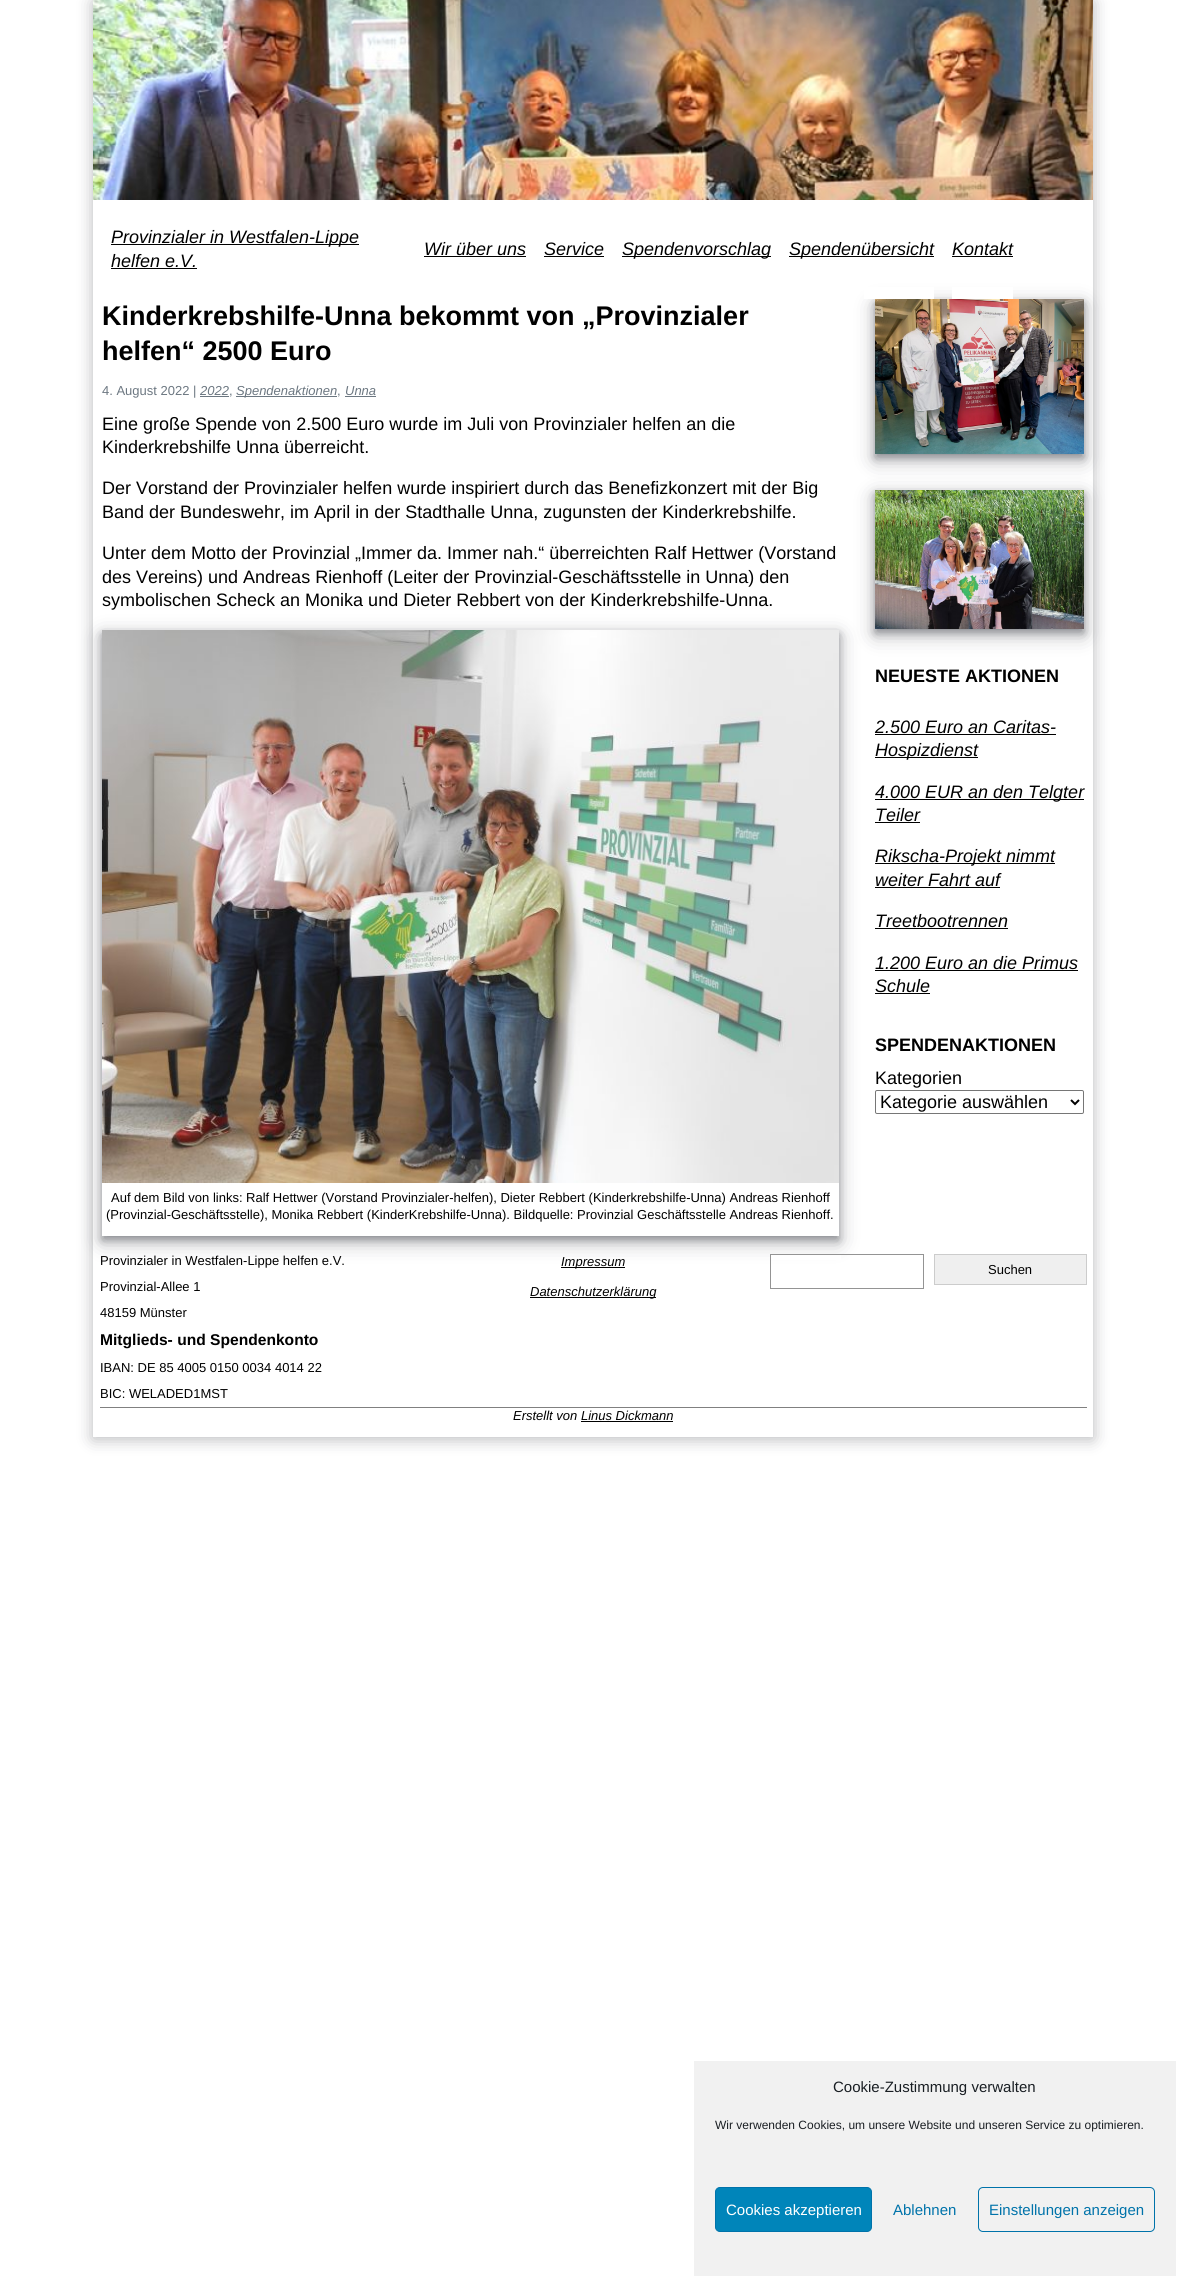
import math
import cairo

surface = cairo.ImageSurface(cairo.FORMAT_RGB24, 1186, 2286)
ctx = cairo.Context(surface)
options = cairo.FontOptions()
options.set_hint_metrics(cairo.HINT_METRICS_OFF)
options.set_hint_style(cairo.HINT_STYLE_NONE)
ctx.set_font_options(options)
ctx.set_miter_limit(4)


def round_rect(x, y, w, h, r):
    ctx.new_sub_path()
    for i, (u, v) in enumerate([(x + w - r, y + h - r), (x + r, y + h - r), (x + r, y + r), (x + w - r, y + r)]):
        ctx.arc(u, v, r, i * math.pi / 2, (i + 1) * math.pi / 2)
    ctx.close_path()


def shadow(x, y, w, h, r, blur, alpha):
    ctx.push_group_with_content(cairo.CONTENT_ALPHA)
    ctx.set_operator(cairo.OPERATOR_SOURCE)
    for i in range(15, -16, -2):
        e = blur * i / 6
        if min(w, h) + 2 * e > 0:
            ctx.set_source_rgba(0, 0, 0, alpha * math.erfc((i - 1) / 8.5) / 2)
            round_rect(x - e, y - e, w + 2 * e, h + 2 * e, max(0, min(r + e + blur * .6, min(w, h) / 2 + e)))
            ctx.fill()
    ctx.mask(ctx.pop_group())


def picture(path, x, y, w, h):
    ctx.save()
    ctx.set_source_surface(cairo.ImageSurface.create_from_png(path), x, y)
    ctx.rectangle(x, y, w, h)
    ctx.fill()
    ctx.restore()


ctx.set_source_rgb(1, 1, 1)
ctx.paint()
ctx.save()
ctx.set_fill_rule(cairo.FILL_RULE_EVEN_ODD)
ctx.new_path()
ctx.move_to(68, 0)
ctx.line_to(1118, 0)
ctx.line_to(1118, 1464)
ctx.line_to(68, 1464)
ctx.close_path()
ctx.move_to(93, 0)
ctx.line_to(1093, 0)
ctx.line_to(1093, 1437)
ctx.line_to(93, 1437)
ctx.close_path()
ctx.clip()
ctx.set_source_rgb(0.055, 0.071, 0.106)
shadow(93, 2, 1000, 1437, 0, 8, 0.3)
ctx.restore()
picture("img1.png", 93, 0, 1000, 200)
ctx.set_source_rgb(0, 0, 0)
ctx.rectangle(111, 244, 248, 1)
ctx.fill()
ctx.select_font_face("Liberation Sans", cairo.FONT_SLANT_ITALIC)
ctx.set_font_size(18)
ctx.move_to(111, 243)
ctx.show_text("Provinzialer in Westfalen-Lippe")
ctx.move_to(111, 267)
ctx.show_text("helfen e.V.")
ctx.rectangle(111, 268, 86, 1)
ctx.fill()
ctx.move_to(424, 255)
ctx.show_text("Wir über uns")
ctx.rectangle(424, 256, 102, 1)
ctx.fill()
ctx.move_to(544, 255)
ctx.show_text("Service")
ctx.rectangle(544, 256, 60, 1)
ctx.fill()
ctx.rectangle(622, 256, 149, 1)
ctx.fill()
ctx.move_to(622, 255)
ctx.show_text("Spendenvorschlag")
ctx.set_source_rgb(0.055, 0.071, 0.106)
shadow(875, 305, 209, 155, 0, 10, 0.3)
shadow(875, 303, 209, 155, 0, 4, 0.3)
ctx.set_source_rgb(1, 1, 1)
ctx.rectangle(864, 287, 70, 12)
ctx.fill()
ctx.set_source_rgb(0, 0, 0)
ctx.rectangle(789, 256, 145, 1)
ctx.fill()
ctx.move_to(789, 255)
ctx.show_text("Spendenübersicht")
ctx.set_source_rgb(1, 1, 1)
ctx.rectangle(952, 287, 61, 12)
ctx.fill()
ctx.set_source_rgb(0, 0, 0)
ctx.move_to(952, 255)
ctx.show_text("Kontakt")
ctx.rectangle(952, 256, 61, 1)
ctx.fill()
ctx.select_font_face("Liberation Sans", cairo.FONT_SLANT_NORMAL, cairo.FONT_WEIGHT_BOLD)
ctx.set_font_size(27)
ctx.move_to(102, 325)
ctx.show_text("Kinderkrebshilfe-Unna bekommt von „Provinzialer")
ctx.move_to(102, 360)
ctx.show_text("helfen“ 2500 Euro")
ctx.select_font_face("Liberation Sans")
ctx.set_font_size(13)
ctx.set_source_rgb(0.424, 0.467, 0.506)
ctx.move_to(102, 395)
ctx.show_text("4. August 2022 |")
ctx.select_font_face("Liberation Sans", cairo.FONT_SLANT_ITALIC)
ctx.move_to(200, 395)
ctx.show_text("2022")
ctx.select_font_face("Liberation Sans")
ctx.move_to(229, 395)
ctx.show_text(",")
ctx.rectangle(200, 396, 29, 1)
ctx.fill()
ctx.rectangle(236, 396, 101, 1)
ctx.fill()
ctx.select_font_face("Liberation Sans", cairo.FONT_SLANT_ITALIC)
ctx.move_to(236, 395)
ctx.show_text("Spendenaktionen")
ctx.select_font_face("Liberation Sans")
ctx.move_to(337, 395)
ctx.show_text(",")
ctx.rectangle(345, 396, 31, 1)
ctx.fill()
ctx.select_font_face("Liberation Sans", cairo.FONT_SLANT_ITALIC)
ctx.move_to(345, 395)
ctx.show_text("Unna")
ctx.select_font_face("Liberation Sans")
ctx.set_font_size(18)
ctx.set_source_rgb(0, 0, 0)
ctx.move_to(102, 430)
ctx.show_text("Eine große Spende von 2.500 Euro wurde im Juli von Provinzialer helfen an die")
ctx.move_to(102, 453)
ctx.show_text("Kinderkrebshilfe Unna überreicht.")
ctx.move_to(102, 494)
ctx.show_text("Der Vorstand der Provinzialer helfen wurde inspiriert durch das Benefizkonzert mit der Big")
ctx.move_to(102, 518)
ctx.show_text("Band der Bundeswehr, im April in der Stadthalle Unna, zugunsten der Kinderkrebshilfe.")
ctx.move_to(102, 559)
ctx.show_text("Unter dem Motto der Provinzial „Immer da. Immer nah.“ überreichten Ralf Hettwer (Vorstand")
ctx.move_to(102, 583)
ctx.show_text("des Vereins) und Andreas Rienhoff (Leiter der Provinzial-Geschäftsstelle in Unna) den")
ctx.save()
ctx.set_fill_rule(cairo.FILL_RULE_EVEN_ODD)
ctx.new_path()
ctx.move_to(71, 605)
ctx.line_to(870, 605)
ctx.line_to(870, 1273)
ctx.line_to(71, 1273)
ctx.close_path()
ctx.move_to(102, 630)
ctx.line_to(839, 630)
ctx.line_to(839, 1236)
ctx.line_to(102, 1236)
ctx.close_path()
ctx.clip()
ctx.set_source_rgb(0.055, 0.071, 0.106)
shadow(102, 636, 737, 606, 0, 10, 0.3)
ctx.restore()
ctx.move_to(102, 606)
ctx.show_text("symbolischen Scheck an Monika und Dieter Rebbert von der Kinderkrebshilfe-Unna.")
ctx.save()
ctx.set_fill_rule(cairo.FILL_RULE_EVEN_ODD)
ctx.new_path()
ctx.move_to(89, 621)
ctx.line_to(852, 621)
ctx.line_to(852, 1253)
ctx.line_to(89, 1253)
ctx.close_path()
ctx.move_to(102, 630)
ctx.line_to(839, 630)
ctx.line_to(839, 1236)
ctx.line_to(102, 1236)
ctx.close_path()
ctx.clip()
ctx.set_source_rgb(0.055, 0.071, 0.106)
shadow(102, 634, 737, 606, 0, 4, 0.3)
ctx.restore()
picture("img2.png", 102, 630, 737, 553)
ctx.set_font_size(13)
ctx.move_to(111, 1202)
ctx.show_text("Auf dem Bild von links: Ralf Hettwer (Vorstand Provinzialer-helfen), Dieter Rebbert (Kinderkrebshilfe-Unna) Andreas Rienhoff")
ctx.move_to(106, 1219)
ctx.show_text("(Provinzial-Geschäftsstelle), Monika Rebbert (KinderKrebshilfe-Unna). Bildquelle: Provinzial Geschäftsstelle Andreas Rienhoff.")
picture("img3.png", 875, 299, 209, 155)
ctx.set_source_rgb(0.055, 0.071, 0.106)
shadow(875, 496, 209, 139, 0, 10, 0.3)
shadow(875, 494, 209, 139, 0, 4, 0.3)
picture("img4.png", 875, 490, 209, 139)
ctx.select_font_face("Liberation Sans", cairo.FONT_SLANT_NORMAL, cairo.FONT_WEIGHT_BOLD)
ctx.set_font_size(18)
ctx.set_source_rgb(0, 0, 0)
ctx.move_to(875, 682)
ctx.show_text("NEUESTE AKTIONEN")
ctx.select_font_face("Liberation Sans", cairo.FONT_SLANT_ITALIC)
ctx.move_to(875, 733)
ctx.show_text("2.500 Euro an Caritas-")
ctx.rectangle(875, 734, 181, 1)
ctx.fill()
ctx.rectangle(875, 757, 103, 1)
ctx.fill()
ctx.move_to(875, 756)
ctx.show_text("Hospizdienst")
ctx.rectangle(875, 799, 209, 1)
ctx.fill()
ctx.move_to(875, 798)
ctx.show_text("4.000 EUR an den Telgter")
ctx.move_to(875, 821)
ctx.show_text("Teiler")
ctx.rectangle(875, 822, 45, 1)
ctx.fill()
ctx.rectangle(875, 863, 180, 1)
ctx.fill()
ctx.move_to(875, 862)
ctx.show_text("Rikscha-Projekt nimmt")
ctx.move_to(875, 886)
ctx.show_text("weiter Fahrt auf")
ctx.rectangle(875, 887, 125, 1)
ctx.fill()
ctx.move_to(875, 927)
ctx.show_text("Treetbootrennen")
ctx.rectangle(875, 928, 133, 1)
ctx.fill()
ctx.move_to(875, 969)
ctx.show_text("1.200 Euro an die Primus")
ctx.rectangle(875, 970, 203, 1)
ctx.fill()
ctx.move_to(875, 992)
ctx.show_text("Schule")
ctx.rectangle(875, 993, 55, 1)
ctx.fill()
ctx.select_font_face("Liberation Sans", cairo.FONT_SLANT_NORMAL, cairo.FONT_WEIGHT_BOLD)
ctx.move_to(875, 1051)
ctx.show_text("SPENDENAKTIONEN")
ctx.select_font_face("Liberation Sans")
ctx.move_to(875, 1084)
ctx.show_text("Kategorien")
round_rect(875.5, 1090.5, 208, 23, 1.5)
ctx.set_source_rgb(0.463, 0.463, 0.463)
ctx.set_line_width(1)
ctx.stroke()
ctx.new_path()
ctx.move_to(1071, 1100)
ctx.line_to(1075, 1104)
ctx.line_to(1079, 1100)
ctx.set_source_rgb(0, 0, 0)
ctx.set_line_width(2)
ctx.stroke()
ctx.move_to(880, 1108)
ctx.show_text("Kategorie auswählen")
ctx.set_font_size(13)
ctx.move_to(100, 1265)
ctx.show_text("Provinzialer in Westfalen-Lippe helfen e.V.")
ctx.move_to(100, 1291)
ctx.show_text("Provinzial-Allee 1")
ctx.move_to(100, 1317)
ctx.show_text("48159 Münster")
ctx.select_font_face("Liberation Sans", cairo.FONT_SLANT_NORMAL, cairo.FONT_WEIGHT_BOLD)
ctx.set_font_size(15.6)
ctx.move_to(100, 1345)
ctx.show_text("Mitglieds- und Spendenkonto")
ctx.select_font_face("Liberation Sans")
ctx.set_font_size(13)
ctx.move_to(100, 1372)
ctx.show_text("IBAN: DE 85 4005 0150 0034 4014 22")
ctx.move_to(100, 1398)
ctx.show_text("BIC: WELADED1MST")
ctx.rectangle(561, 1267, 64, 1)
ctx.fill()
ctx.select_font_face("Liberation Sans", cairo.FONT_SLANT_ITALIC)
ctx.move_to(561, 1266)
ctx.show_text("Impressum")
ctx.rectangle(530, 1297, 126, 1)
ctx.fill()
ctx.move_to(530, 1296)
ctx.show_text("Datenschutzerklärung")
ctx.set_source_rgb(1, 1, 1)
ctx.rectangle(771, 1255, 70, 5)
ctx.fill()
ctx.rectangle(770.5, 1254.5, 153, 34)
ctx.set_source_rgb(0.58, 0.58, 0.58)
ctx.set_line_width(1)
ctx.stroke()
ctx.set_source_rgb(0.937, 0.937, 0.937)
ctx.rectangle(934.5, 1254.5, 152, 30)
ctx.fill_preserve()
ctx.set_source_rgb(0.8, 0.8, 0.8)
ctx.stroke()
ctx.select_font_face("Liberation Sans")
ctx.set_source_rgb(0, 0, 0)
ctx.move_to(988, 1274)
ctx.show_text("Suchen")
ctx.set_source_rgb(0.502, 0.502, 0.502)
ctx.rectangle(100, 1407, 987, 1)
ctx.fill()
ctx.select_font_face("Liberation Sans", cairo.FONT_SLANT_ITALIC)
ctx.set_source_rgb(0, 0, 0)
ctx.move_to(513, 1420)
ctx.show_text("Erstellt von Linus Dickmann")
ctx.rectangle(581, 1421, 92, 1)
ctx.fill()
ctx.set_source_rgb(0.945, 0.945, 0.945)
ctx.rectangle(694, 2061, 482, 215)
ctx.fill()
ctx.select_font_face("Liberation Sans")
ctx.set_font_size(15)
ctx.set_source_rgb(0.098, 0.118, 0.137)
ctx.move_to(833, 2092)
ctx.show_text("Cookie-Zustimmung verwalten")
ctx.set_font_size(12)
ctx.move_to(715, 2129)
ctx.show_text("Wir verwenden Cookies, um unsere Website und unseren Service zu optimieren.")
ctx.set_source_rgb(0, 0.522, 0.729)
round_rect(715.5, 2187.5, 156, 44, 4.5)
ctx.fill_preserve()
ctx.set_source_rgb(0, 0.451, 0.667)
ctx.stroke()
ctx.set_font_size(15)
ctx.set_source_rgb(1, 1, 1)
ctx.move_to(726, 2215)
ctx.show_text("Cookies akzeptieren")
ctx.set_source_rgb(0, 0.451, 0.667)
ctx.move_to(893, 2215)
ctx.show_text("Ablehnen")
round_rect(978.5, 2187.5, 176, 44, 4.5)
ctx.stroke()
ctx.move_to(989, 2215)
ctx.show_text("Einstellungen anzeigen")
surface.write_to_png("page.png")
